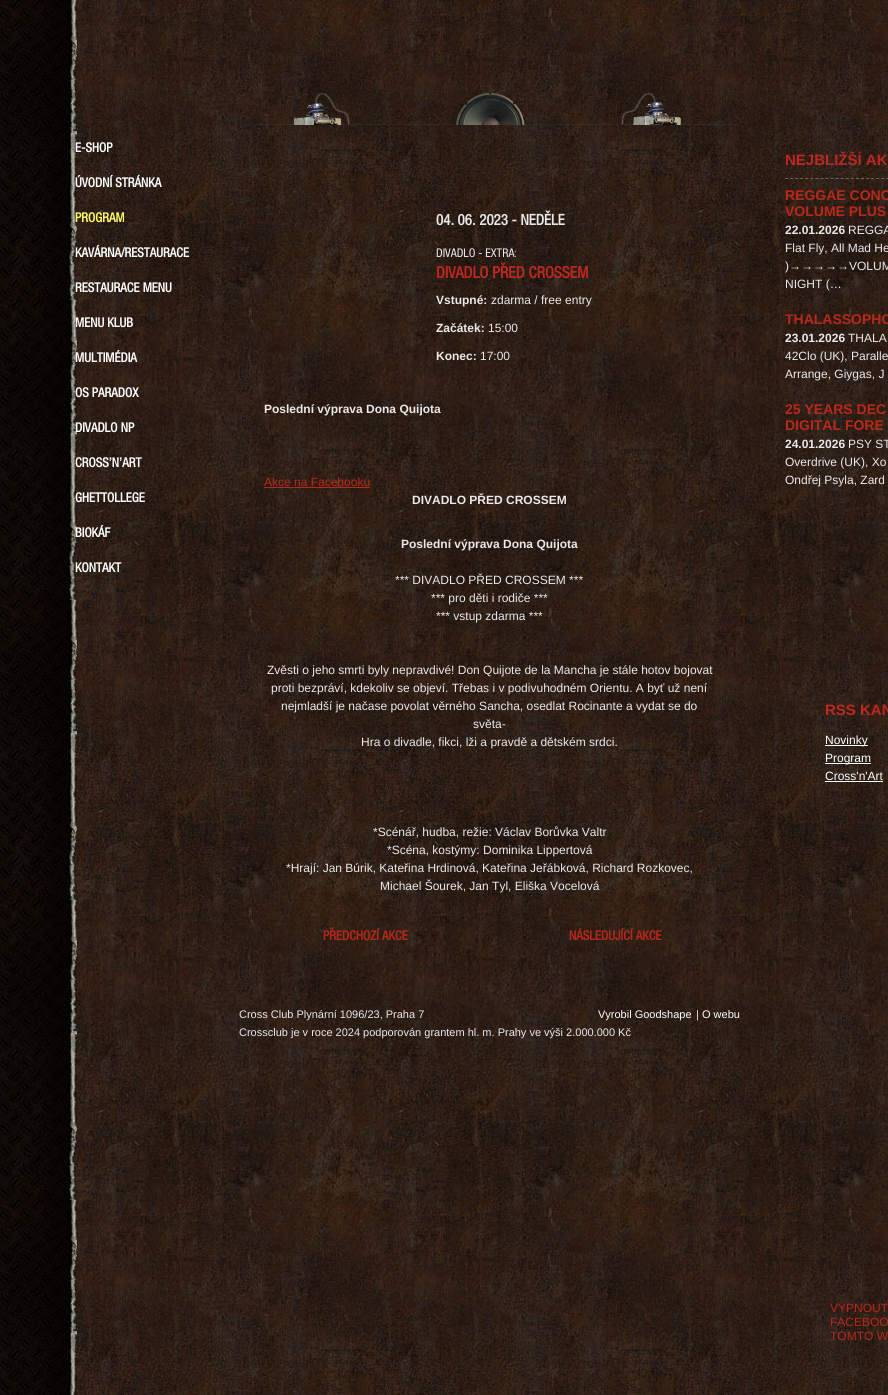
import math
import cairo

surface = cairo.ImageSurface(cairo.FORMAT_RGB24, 888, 1395)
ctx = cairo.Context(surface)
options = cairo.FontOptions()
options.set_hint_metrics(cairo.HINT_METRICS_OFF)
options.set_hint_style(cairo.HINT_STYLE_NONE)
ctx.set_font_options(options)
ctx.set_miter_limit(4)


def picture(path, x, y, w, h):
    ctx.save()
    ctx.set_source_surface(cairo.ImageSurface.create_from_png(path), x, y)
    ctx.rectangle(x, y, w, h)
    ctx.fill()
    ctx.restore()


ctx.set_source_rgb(1, 1, 1)
ctx.paint()
picture("img1.png", 0, 0, 888, 1395)
ctx.select_font_face("Helvetica Neue", cairo.FONT_SLANT_NORMAL, cairo.FONT_WEIGHT_BOLD)
ctx.set_font_size(13)
ctx.set_source_rgb(1, 1, 1)
ctx.move_to(75, 152)
ctx.show_text("E-SHOP")
ctx.move_to(75, 187)
ctx.show_text("ÚVODNÍ STRÁNKA")
ctx.set_source_rgb(1, 1, 0.408)
ctx.move_to(75, 222)
ctx.show_text("PROGRAM")
ctx.set_source_rgb(1, 1, 1)
ctx.move_to(75, 257)
ctx.show_text("KAVÁRNA/RESTAURACE")
ctx.move_to(75, 292)
ctx.show_text("RESTAURACE MENU")
ctx.move_to(75, 327)
ctx.show_text("MENU KLUB")
ctx.move_to(75, 362)
ctx.show_text("MULTIMÉDIA")
ctx.move_to(75, 397)
ctx.show_text("OS PARADOX")
ctx.move_to(75, 432)
ctx.show_text("DIVADLO NP")
ctx.move_to(75, 467)
ctx.show_text("CROSS’N’ART")
ctx.move_to(75, 502)
ctx.show_text("GHETTOLLEGE")
ctx.move_to(75, 537)
ctx.show_text("BIOKÁF")
ctx.move_to(75, 572)
ctx.show_text("KONTAKT")
picture("img2.png", 242, 93, 496, 32)
ctx.set_font_size(15)
ctx.set_source_rgb(0.918, 0.91, 0.914)
ctx.move_to(436, 225)
ctx.show_text("04. 06. 2023 - NEDĚLE")
ctx.select_font_face("Helvetica Neue Medium")
ctx.set_font_size(12)
ctx.move_to(436, 257)
ctx.show_text("DIVADLO - EXTRA:")
ctx.select_font_face("Helvetica Neue", cairo.FONT_SLANT_NORMAL, cairo.FONT_WEIGHT_BOLD)
ctx.set_font_size(16)
ctx.set_source_rgb(0.741, 0.157, 0.129)
ctx.move_to(436, 278)
ctx.show_text("DIVADLO PŘED CROSSEM")
ctx.select_font_face("Liberation Sans", cairo.FONT_SLANT_NORMAL, cairo.FONT_WEIGHT_BOLD)
ctx.set_font_size(12)
ctx.set_source_rgb(0.918, 0.91, 0.914)
ctx.move_to(436, 304)
ctx.show_text("Vstupné:")
ctx.select_font_face("Liberation Sans")
ctx.move_to(491, 304)
ctx.show_text("zdarma / free entry")
ctx.select_font_face("Liberation Sans", cairo.FONT_SLANT_NORMAL, cairo.FONT_WEIGHT_BOLD)
ctx.move_to(436, 332)
ctx.show_text("Začátek:")
ctx.select_font_face("Liberation Sans")
ctx.move_to(488, 332)
ctx.show_text("15:00")
ctx.select_font_face("Liberation Sans", cairo.FONT_SLANT_NORMAL, cairo.FONT_WEIGHT_BOLD)
ctx.move_to(436, 360)
ctx.show_text("Konec:")
ctx.select_font_face("Liberation Sans")
ctx.move_to(480, 360)
ctx.show_text("17:00")
ctx.select_font_face("Liberation Sans", cairo.FONT_SLANT_NORMAL, cairo.FONT_WEIGHT_BOLD)
ctx.move_to(264, 413)
ctx.show_text("Poslední výprava Dona Quijota")
ctx.select_font_face("Liberation Sans")
ctx.set_source_rgb(0.725, 0.157, 0.106)
ctx.move_to(264, 486)
ctx.show_text("Akce na Facebooku")
ctx.rectangle(264, 487, 106, 1)
ctx.fill()
ctx.select_font_face("Liberation Sans", cairo.FONT_SLANT_NORMAL, cairo.FONT_WEIGHT_BOLD)
ctx.set_source_rgb(0.918, 0.91, 0.914)
ctx.move_to(412, 504)
ctx.show_text("DIVADLO PŘED CROSSEM")
ctx.move_to(401, 548)
ctx.show_text("Poslední výprava Dona Quijota")
ctx.select_font_face("Liberation Sans")
ctx.move_to(395, 584)
ctx.show_text("*** DIVADLO PŘED CROSSEM ***")
ctx.move_to(431, 602)
ctx.show_text("*** pro děti i rodiče ***")
ctx.move_to(436, 620)
ctx.show_text("*** vstup zdarma ***")
ctx.move_to(267, 674)
ctx.show_text("Zvěsti o jeho smrti byly nepravdivé! Don Quijote de la Mancha je stále hotov bojovat")
ctx.move_to(271, 692)
ctx.show_text("proti bezpráví, kdekoliv se objeví. Třebas i v podivuhodném Orientu. A byť už není")
ctx.move_to(281, 710)
ctx.show_text("nejmladší je načase povolat věrného Sancha, osedlat Rocinante a vydat se do")
ctx.move_to(473, 728)
ctx.show_text("světa-")
ctx.move_to(361, 746)
ctx.show_text("Hra o divadle, fikci, lži a pravdě a dětském srdci.")
ctx.move_to(373, 836)
ctx.show_text("*Scénář, hudba, režie: Václav Borůvka Valtr")
ctx.move_to(387, 854)
ctx.show_text("*Scéna, kostýmy: Dominika Lippertová")
ctx.move_to(286, 872)
ctx.show_text("*Hrají: Jan Búrik, Kateřina Hrdinová, Kateřina Jeřábková, Richard Rozkovec,")
ctx.move_to(380, 890)
ctx.show_text("Michael Šourek, Jan Tyl, Eliška Vocelová")
ctx.select_font_face("Helvetica Neue", cairo.FONT_SLANT_NORMAL, cairo.FONT_WEIGHT_BOLD)
ctx.set_font_size(13)
ctx.set_source_rgb(0.725, 0.157, 0.106)
ctx.move_to(323, 940)
ctx.show_text("PŘEDCHOZÍ AKCE")
ctx.move_to(569, 940)
ctx.show_text("NÁSLEDUJÍCÍ AKCE")
ctx.select_font_face("Liberation Sans")
ctx.set_font_size(11)
ctx.set_source_rgb(0.918, 0.91, 0.914)
ctx.move_to(239, 1018)
ctx.show_text("Cross Club Plynární 1096/23, Praha 7")
ctx.set_source_rgb(1, 1, 1)
ctx.move_to(598, 1018)
ctx.show_text("Vyrobil Goodshape")
ctx.set_source_rgb(0.918, 0.91, 0.914)
ctx.move_to(696, 1018)
ctx.show_text("|")
ctx.set_source_rgb(1, 1, 1)
ctx.move_to(702, 1018)
ctx.show_text("O webu")
ctx.set_source_rgb(0.918, 0.91, 0.914)
ctx.move_to(239, 1036)
ctx.show_text("Crossclub je v roce 2024 podporován grantem hl. m. Prahy ve výši 2.000.000 Kč")
ctx.new_path()
ctx.move_to(785, 178.5)
ctx.line_to(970, 178.5)
ctx.set_source_rgb(0.4, 0.4, 0.4)
ctx.set_line_width(1)
ctx.set_dash([3, 2.06])
ctx.stroke()
ctx.select_font_face("Liberation Sans", cairo.FONT_SLANT_NORMAL, cairo.FONT_WEIGHT_BOLD)
ctx.set_font_size(15)
ctx.set_source_rgb(0.741, 0.157, 0.129)
ctx.move_to(785, 165)
ctx.show_text("NEJBLIŽŠÍ AK")
ctx.set_font_size(14)
ctx.set_source_rgb(0.725, 0.157, 0.106)
ctx.move_to(785, 200)
ctx.show_text("REGGAE CONC")
ctx.move_to(785, 216)
ctx.show_text("VOLUME PLUS")
ctx.set_font_size(12)
ctx.set_source_rgb(0.918, 0.91, 0.914)
ctx.move_to(785, 234)
ctx.show_text("22.01.2026")
ctx.select_font_face("Liberation Sans")
ctx.move_to(848, 234)
ctx.show_text("REGGA")
ctx.move_to(785, 252)
ctx.show_text("Flat Fly, All Mad He")
ctx.move_to(785, 270)
ctx.show_text(")→→→→→VOLUM")
ctx.move_to(785, 288)
ctx.show_text("NIGHT (…")
ctx.select_font_face("Liberation Sans", cairo.FONT_SLANT_NORMAL, cairo.FONT_WEIGHT_BOLD)
ctx.set_font_size(14)
ctx.set_source_rgb(0.725, 0.157, 0.106)
ctx.move_to(785, 324)
ctx.show_text("THALASSOPHO")
ctx.set_font_size(12)
ctx.set_source_rgb(0.918, 0.91, 0.914)
ctx.move_to(785, 342)
ctx.show_text("23.01.2026")
ctx.select_font_face("Liberation Sans")
ctx.move_to(848, 342)
ctx.show_text("THALA")
ctx.move_to(785, 360)
ctx.show_text("42Clo (UK), Paralle")
ctx.move_to(785, 378)
ctx.show_text("Arrange, Giygas, J")
ctx.select_font_face("Liberation Sans", cairo.FONT_SLANT_NORMAL, cairo.FONT_WEIGHT_BOLD)
ctx.set_font_size(14)
ctx.set_source_rgb(0.725, 0.157, 0.106)
ctx.move_to(785, 414)
ctx.show_text("25 YEARS DEC")
ctx.move_to(785, 430)
ctx.show_text("DIGITAL FORE")
ctx.set_font_size(12)
ctx.set_source_rgb(0.918, 0.91, 0.914)
ctx.move_to(785, 448)
ctx.show_text("24.01.2026")
ctx.select_font_face("Liberation Sans")
ctx.move_to(848, 448)
ctx.show_text("PSY ST")
ctx.move_to(785, 466)
ctx.show_text("Overdrive (UK), Xo")
ctx.move_to(785, 484)
ctx.show_text("Ondřej Psyla, Zard")
ctx.select_font_face("Liberation Sans", cairo.FONT_SLANT_NORMAL, cairo.FONT_WEIGHT_BOLD)
ctx.set_font_size(15)
ctx.set_source_rgb(0.741, 0.157, 0.129)
ctx.move_to(825, 715)
ctx.show_text("RSS KAN")
ctx.set_source_rgb(1, 1, 1)
ctx.rectangle(825, 745, 43, 1)
ctx.fill()
ctx.select_font_face("Liberation Sans")
ctx.set_font_size(12)
ctx.move_to(825, 744)
ctx.show_text("Novinky")
ctx.rectangle(825, 763, 46, 1)
ctx.fill()
ctx.move_to(825, 762)
ctx.show_text("Program")
ctx.move_to(825, 780)
ctx.show_text("Cross'n'Art")
ctx.rectangle(825, 781, 58, 1)
ctx.fill()
ctx.set_source_rgb(0.725, 0.157, 0.106)
ctx.move_to(830, 1312)
ctx.show_text("VYPNOUT")
ctx.move_to(830, 1326)
ctx.show_text("FACEBOO")
ctx.move_to(830, 1340)
ctx.show_text("TOMTO W")
surface.write_to_png("page.png")
